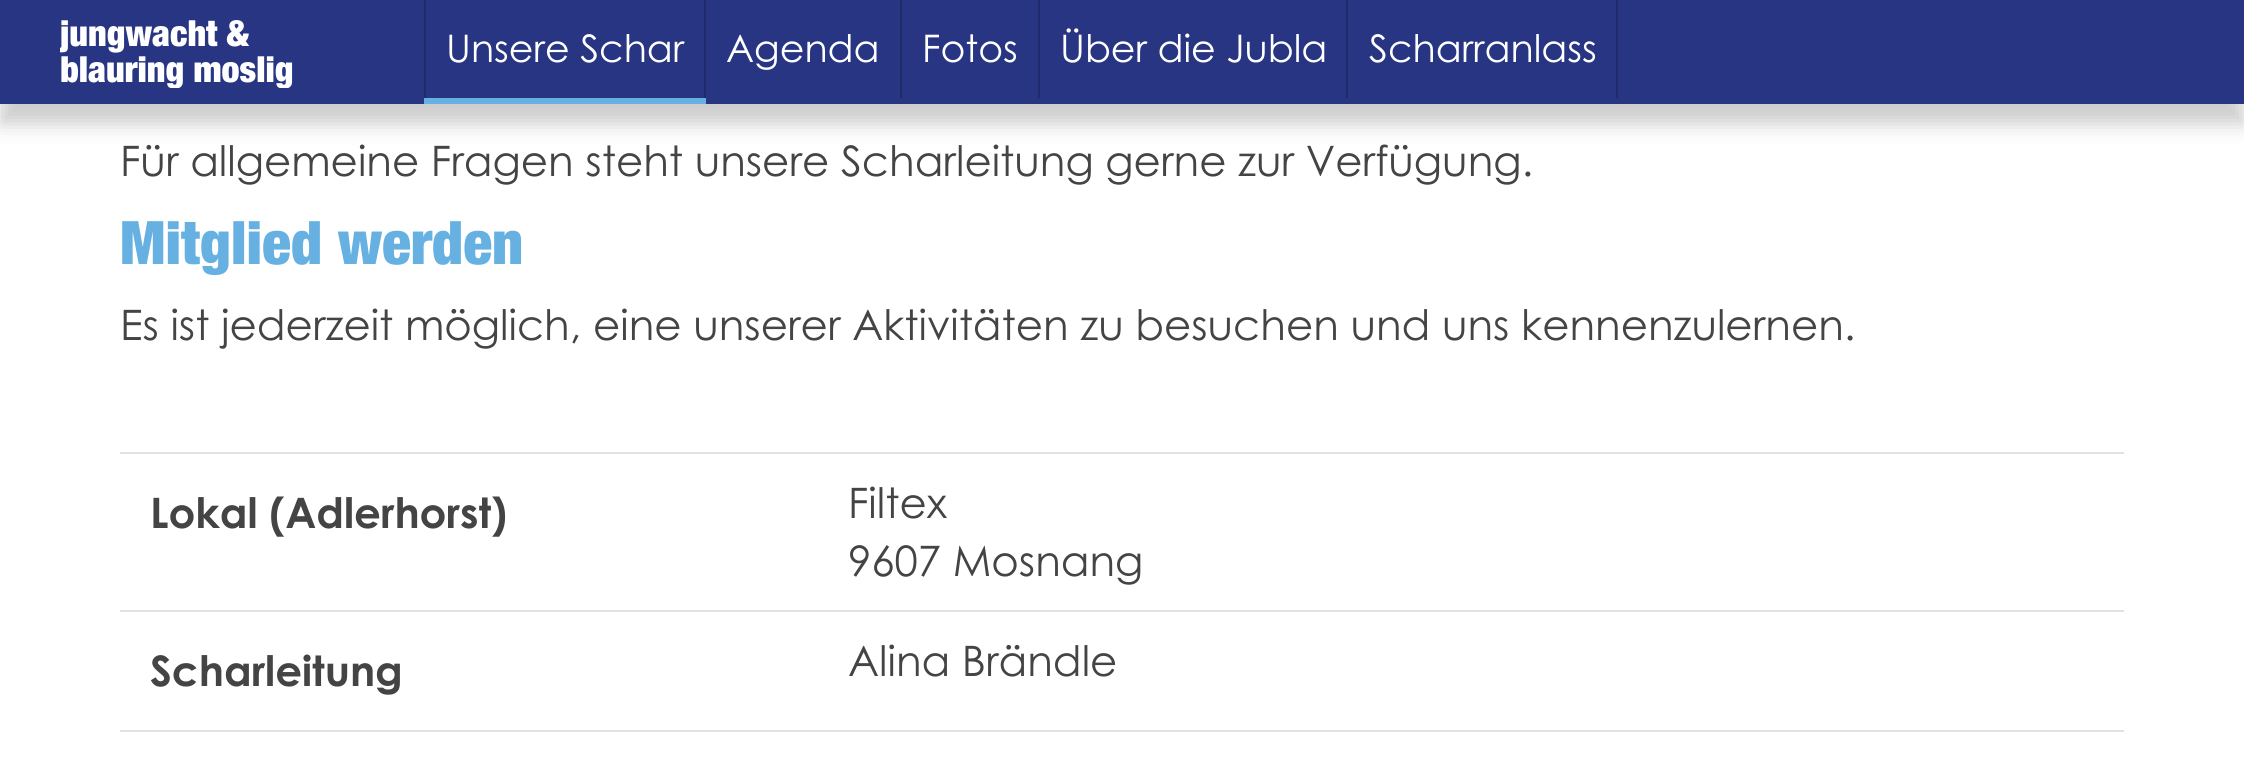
import math
import cairo

surface = cairo.ImageSurface(cairo.FORMAT_RGB24, 2244, 771)
ctx = cairo.Context(surface)
options = cairo.FontOptions()
options.set_hint_metrics(cairo.HINT_METRICS_OFF)
options.set_hint_style(cairo.HINT_STYLE_NONE)
ctx.set_font_options(options)
ctx.set_miter_limit(4)


def round_rect(x, y, w, h, r):
    ctx.new_sub_path()
    for i, (u, v) in enumerate([(x + w - r, y + h - r), (x + r, y + h - r), (x + r, y + r), (x + w - r, y + r)]):
        ctx.arc(u, v, r, i * math.pi / 2, (i + 1) * math.pi / 2)
    ctx.close_path()


def shadow(x, y, w, h, r, blur, alpha):
    ctx.push_group_with_content(cairo.CONTENT_ALPHA)
    ctx.set_operator(cairo.OPERATOR_SOURCE)
    for i in range(15, -16, -2):
        e = blur * i / 6
        if min(w, h) + 2 * e > 0:
            ctx.set_source_rgba(0, 0, 0, alpha * math.erfc((i - 1) / 8.5) / 2)
            round_rect(x - e, y - e, w + 2 * e, h + 2 * e, max(0, min(r + e + blur * .6, min(w, h) / 2 + e)))
            ctx.fill()
    ctx.mask(ctx.pop_group())


ctx.set_source_rgb(1, 1, 1)
ctx.paint()
ctx.set_source_rgb(0, 0, 0)
shadow(0, 20, 2244, 104, 0, 10, 0.2)
ctx.set_source_rgb(0.157, 0.208, 0.514)
ctx.rectangle(0, 0, 2244, 104)
ctx.fill()
ctx.save()
ctx.rectangle(60, 16, 304, 72)
ctx.clip()
ctx.select_font_face("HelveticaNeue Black")
ctx.set_font_size(36)
ctx.set_source_rgb(1, 1, 1)
ctx.move_to(60, 46)
ctx.show_text("jungwacht &")
ctx.move_to(60, 82)
ctx.show_text("blauring moslig")
ctx.restore()
ctx.set_source_rgb(0.4, 0.694, 0.886)
ctx.rectangle(424, 98, 282, 6)
ctx.fill()
ctx.set_source_rgb(0.125, 0.165, 0.412)
ctx.rectangle(704, 0, 2, 98)
ctx.fill()
ctx.rectangle(424, 0, 2, 98)
ctx.fill()
ctx.select_font_face("Century Gothic")
ctx.set_font_size(38)
ctx.set_source_rgb(1, 1, 1)
ctx.move_to(446, 62)
ctx.show_text("Unsere Schar")
ctx.set_source_rgb(0.125, 0.165, 0.412)
ctx.rectangle(900, 0, 2, 98)
ctx.fill()
ctx.set_source_rgb(1, 1, 1)
ctx.move_to(726, 62)
ctx.show_text("Agenda")
ctx.set_source_rgb(0.125, 0.165, 0.412)
ctx.rectangle(1038, 0, 2, 98)
ctx.fill()
ctx.set_source_rgb(1, 1, 1)
ctx.move_to(922, 62)
ctx.show_text("Fotos")
ctx.set_source_rgb(0.125, 0.165, 0.412)
ctx.rectangle(1346, 0, 2, 98)
ctx.fill()
ctx.set_source_rgb(1, 1, 1)
ctx.move_to(1060, 62)
ctx.show_text("Über die Jubla")
ctx.set_source_rgb(0.125, 0.165, 0.412)
ctx.rectangle(1616, 0, 2, 98)
ctx.fill()
ctx.set_source_rgb(1, 1, 1)
ctx.move_to(1369, 62)
ctx.show_text("Scharranlass")
ctx.set_font_size(42)
ctx.set_source_rgb(0.267, 0.267, 0.267)
ctx.move_to(120, 176)
ctx.show_text("Für allgemeine Fragen steht unsere Scharleitung gerne zur Verfügung.")
ctx.select_font_face("HelveticaNeue Black")
ctx.set_font_size(60)
ctx.set_source_rgb(0.4, 0.694, 0.886)
ctx.move_to(120, 264)
ctx.show_text("Mitglied werden")
ctx.select_font_face("Century Gothic")
ctx.set_font_size(42)
ctx.set_source_rgb(0.267, 0.267, 0.267)
ctx.move_to(120, 340)
ctx.show_text("Es ist jederzeit möglich, eine unserer Aktivitäten zu besuchen und uns kennenzulernen.")
ctx.select_font_face("Century Gothic", cairo.FONT_SLANT_NORMAL, cairo.FONT_WEIGHT_BOLD)
ctx.move_to(150, 528)
ctx.show_text("Lokal (Adlerhorst)")
ctx.set_source_rgb(0.871, 0.886, 0.902)
ctx.rectangle(120, 452, 2004, 2)
ctx.fill()
ctx.select_font_face("Century Gothic")
ctx.set_source_rgb(0.267, 0.267, 0.267)
ctx.move_to(848, 518)
ctx.show_text("Filtex")
ctx.move_to(848, 576)
ctx.show_text("9607 Mosnang")
ctx.select_font_face("Century Gothic", cairo.FONT_SLANT_NORMAL, cairo.FONT_WEIGHT_BOLD)
ctx.move_to(150, 686)
ctx.show_text("Scharleitung")
ctx.set_source_rgb(0.871, 0.886, 0.902)
ctx.rectangle(120, 610, 2004, 2)
ctx.fill()
ctx.select_font_face("Century Gothic")
ctx.set_source_rgb(0.267, 0.267, 0.267)
ctx.move_to(848, 676)
ctx.show_text("Alina Brändle")
ctx.set_source_rgb(0.871, 0.886, 0.902)
ctx.rectangle(120, 730, 2004, 2)
ctx.fill()
surface.write_to_png("page.png")
